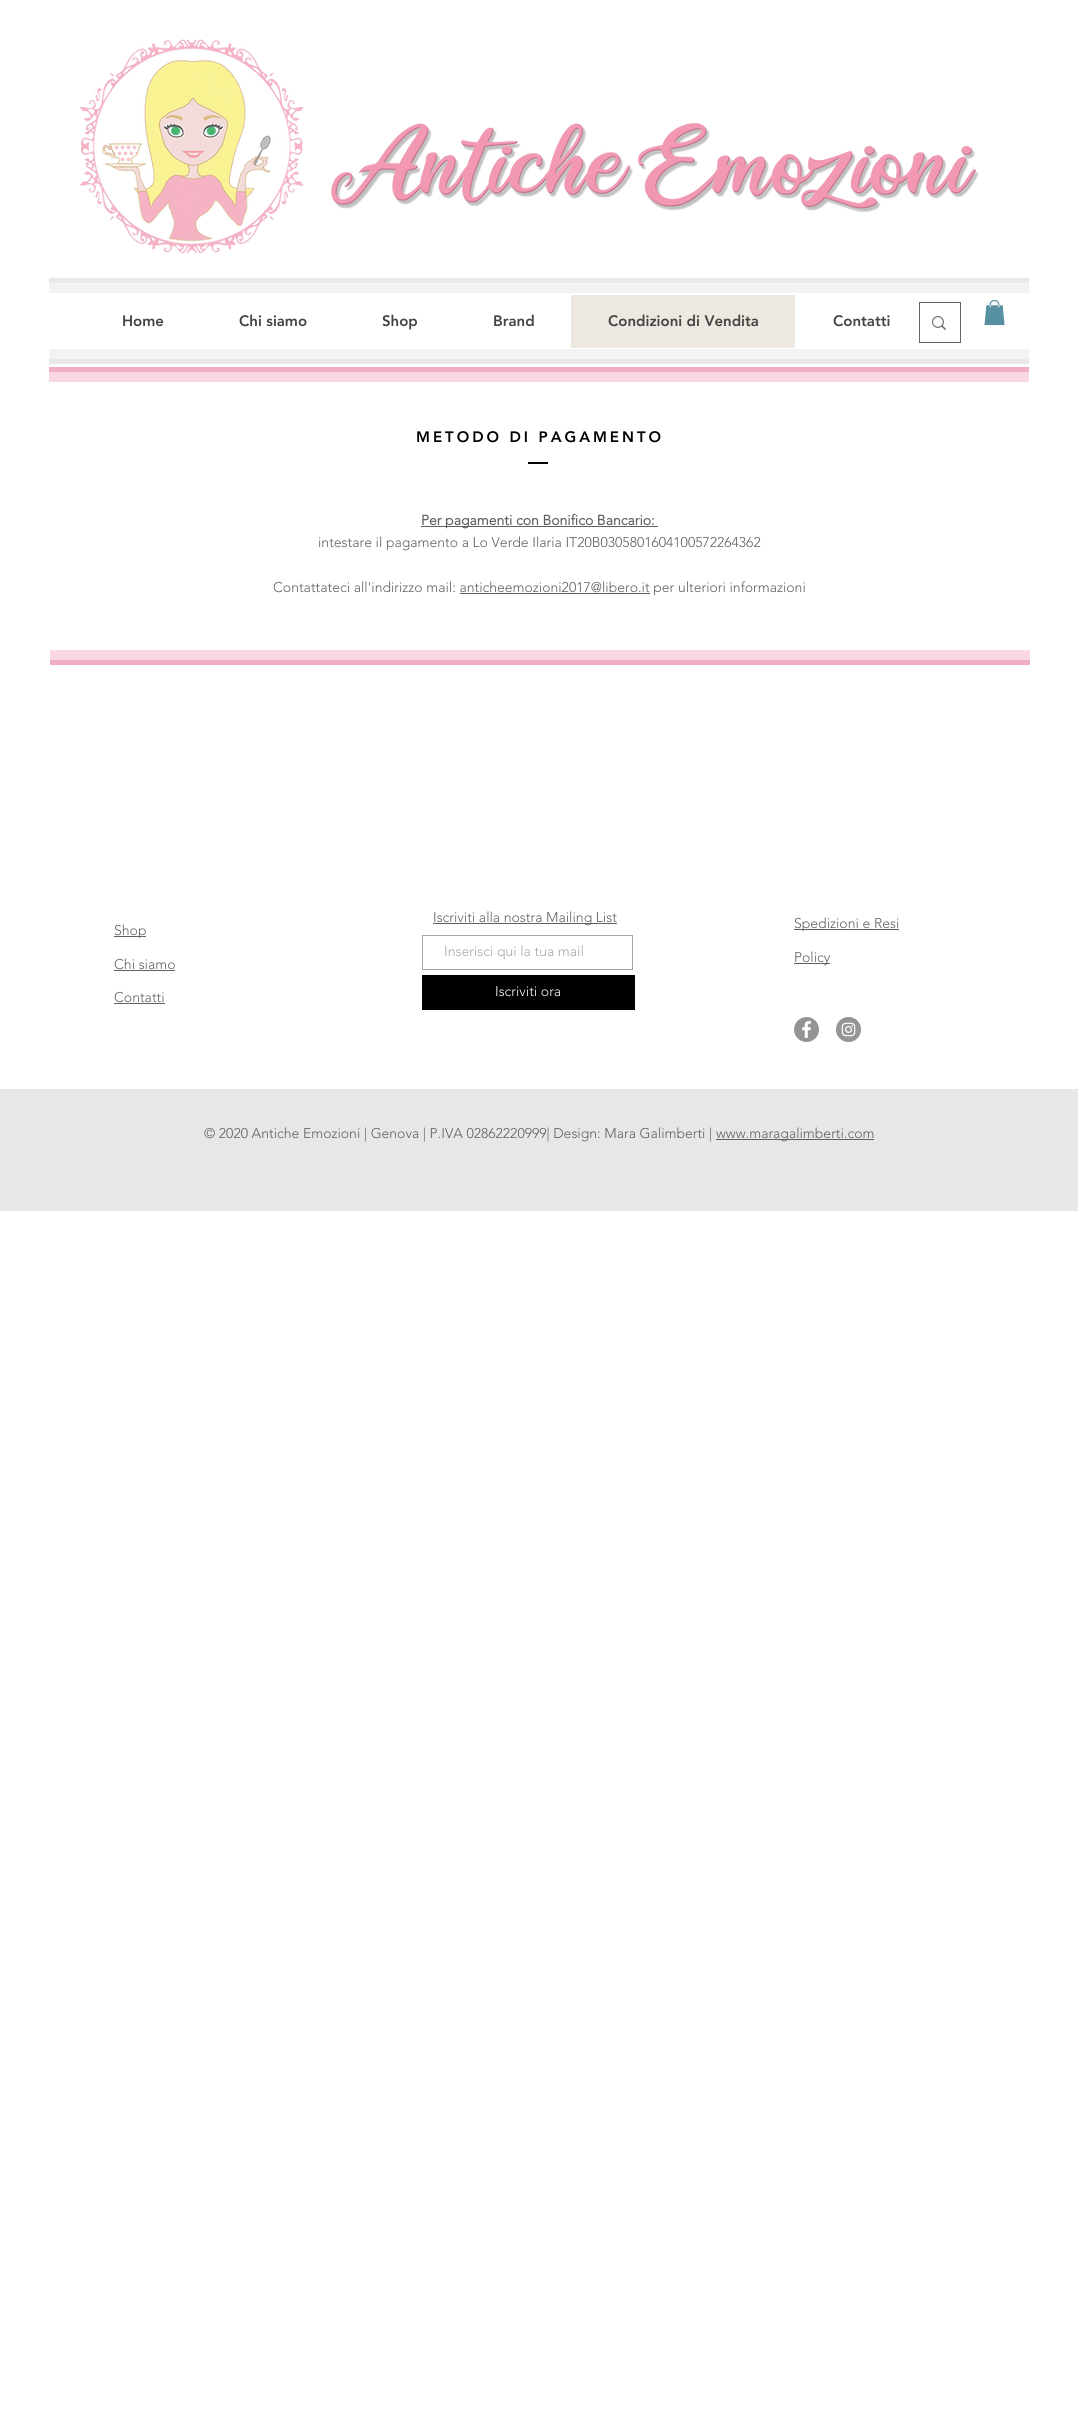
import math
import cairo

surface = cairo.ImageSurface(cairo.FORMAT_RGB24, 1078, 2423)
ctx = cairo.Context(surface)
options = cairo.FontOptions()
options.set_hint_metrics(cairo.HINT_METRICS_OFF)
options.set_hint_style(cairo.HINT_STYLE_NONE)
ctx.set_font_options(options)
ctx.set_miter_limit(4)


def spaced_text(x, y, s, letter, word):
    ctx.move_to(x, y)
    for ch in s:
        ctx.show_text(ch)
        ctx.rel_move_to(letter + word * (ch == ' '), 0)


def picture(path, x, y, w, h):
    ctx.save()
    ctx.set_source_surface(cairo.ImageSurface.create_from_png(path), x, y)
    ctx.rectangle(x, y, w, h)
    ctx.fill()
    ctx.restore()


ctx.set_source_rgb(1, 1, 1)
ctx.paint()
picture("img1.png", 80, 39, 224, 215)
picture("img2.png", 330, 123, 649, 90)
ctx.set_source_rgb(0.914, 0.914, 0.914)
ctx.rectangle(49, 278, 980, 5)
ctx.fill()
ctx.set_source_rgb(0.953, 0.953, 0.953)
ctx.rectangle(49, 283, 980, 10)
ctx.fill()
ctx.select_font_face("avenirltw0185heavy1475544 Black")
ctx.set_font_size(15)
ctx.set_source_rgb(0.267, 0.267, 0.267)
ctx.move_to(122, 326)
ctx.show_text("Home")
ctx.move_to(239, 326)
ctx.show_text("Chi siamo")
ctx.move_to(382, 326)
ctx.show_text("Shop")
ctx.move_to(493, 326)
ctx.show_text("Brand")
ctx.set_source_rgb(0.929, 0.914, 0.882)
ctx.rectangle(571, 295, 224, 53)
ctx.fill()
ctx.set_source_rgb(0.267, 0.267, 0.267)
ctx.move_to(608, 326)
ctx.show_text("Condizioni di Vendita")
ctx.move_to(833, 326)
ctx.show_text("Contatti")
ctx.rectangle(919.5, 302.5, 41, 40)
ctx.set_source_rgb(0.4, 0.4, 0.4)
ctx.set_line_width(1)
ctx.stroke()
picture("img3.png", 932, 316, 14, 14)
picture("img4.png", 984, 300, 21, 26)
ctx.set_source_rgb(0.953, 0.953, 0.953)
ctx.rectangle(49, 349, 980, 10)
ctx.fill()
ctx.set_source_rgb(0.914, 0.914, 0.914)
ctx.rectangle(49, 359, 980, 5)
ctx.fill()
ctx.set_source_rgb(0.941, 0.686, 0.78)
ctx.rectangle(49, 367, 980, 5)
ctx.fill()
ctx.set_source_rgb(0.973, 0.843, 0.89)
ctx.rectangle(49, 372, 980, 10)
ctx.fill()
ctx.set_source_rgb(0, 0, 0)
spaced_text(416, 442, "METODO DI PAGAMENTO", 3, 0)
ctx.rectangle(528, 462, 20, 2)
ctx.fill()
ctx.set_source_rgb(0.38, 0.376, 0.376)
ctx.rectangle(421, 526, 237, 1)
ctx.fill()
ctx.select_font_face("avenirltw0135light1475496", cairo.FONT_SLANT_NORMAL, cairo.FONT_WEIGHT_BOLD)
ctx.set_font_size(14)
ctx.move_to(421, 525)
ctx.show_text("Per pagamenti con Bonifico Bancario:")
ctx.select_font_face("avenirltw0135light1475496 Light")
ctx.move_to(318, 547)
ctx.show_text("intestare il pagamento a Lo Verde Ilaria IT20B0305801604100572264362")
ctx.move_to(273, 592)
ctx.show_text("Contattateci all'indirizzo mail: anticheemozioni2017@libero.it per ulteriori informazioni")
ctx.rectangle(460, 593, 190, 1)
ctx.fill()
ctx.set_source_rgb(0.973, 0.843, 0.89)
ctx.rectangle(50, 650, 980, 10)
ctx.fill()
ctx.set_source_rgb(0.941, 0.686, 0.78)
ctx.rectangle(50, 660, 980, 5)
ctx.fill()
ctx.set_source_rgb(0.38, 0.376, 0.376)
ctx.rectangle(114, 936, 32, 1)
ctx.fill()
ctx.move_to(114, 935)
ctx.show_text("Shop")
ctx.move_to(114, 969)
ctx.show_text("Chi siamo")
ctx.rectangle(114, 970, 61, 1)
ctx.fill()
ctx.move_to(114, 1002)
ctx.show_text("Contatti")
ctx.rectangle(114, 1003, 51, 1)
ctx.fill()
ctx.rectangle(433, 923, 184, 1)
ctx.fill()
ctx.move_to(433, 922)
ctx.show_text("Iscriviti alla nostra Mailing List")
ctx.rectangle(422.5, 935.5, 210, 34)
ctx.set_source_rgb(0.651, 0.651, 0.651)
ctx.stroke()
ctx.move_to(444, 956)
ctx.show_text("Inserisci qui la tua mail")
ctx.set_source_rgb(0, 0, 0)
ctx.rectangle(422, 975, 213, 35)
ctx.fill()
ctx.set_source_rgb(1, 1, 1)
ctx.move_to(495, 996)
ctx.show_text("Iscriviti ora")
ctx.set_source_rgb(0.38, 0.376, 0.376)
ctx.rectangle(794, 929, 105, 1)
ctx.fill()
ctx.move_to(794, 928)
ctx.show_text("Spedizioni e Resi")
ctx.rectangle(794, 963, 36, 1)
ctx.fill()
ctx.move_to(794, 962)
ctx.show_text("Policy")
picture("img5.png", 794, 1017, 25, 25)
picture("img6.png", 836, 1017, 25, 25)
ctx.set_source_rgb(0.91, 0.902, 0.902)
ctx.rectangle(0, 1089, 1078, 122)
ctx.fill()
ctx.set_source_rgb(0.38, 0.376, 0.376)
ctx.move_to(204, 1138)
ctx.show_text("© 2020 Antiche Emozioni | Genova | P.IVA 02862220999| Design: Mara Galimberti |")
ctx.rectangle(716, 1139, 158, 1)
ctx.fill()
ctx.move_to(716, 1138)
ctx.show_text("www.maragalimberti.com")
surface.write_to_png("page.png")
